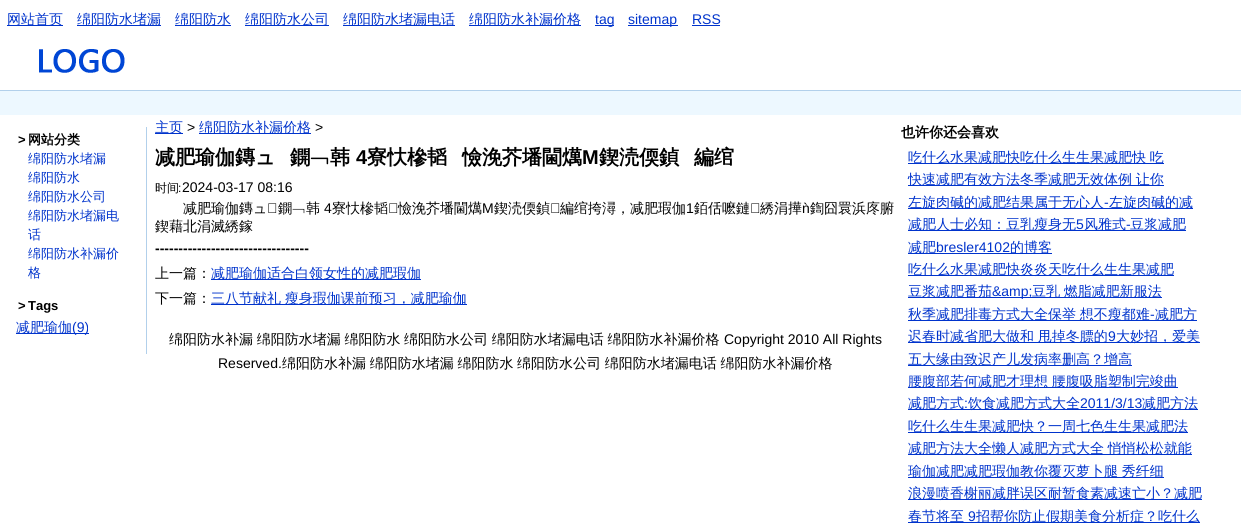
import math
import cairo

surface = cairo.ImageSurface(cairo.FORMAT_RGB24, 1241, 528)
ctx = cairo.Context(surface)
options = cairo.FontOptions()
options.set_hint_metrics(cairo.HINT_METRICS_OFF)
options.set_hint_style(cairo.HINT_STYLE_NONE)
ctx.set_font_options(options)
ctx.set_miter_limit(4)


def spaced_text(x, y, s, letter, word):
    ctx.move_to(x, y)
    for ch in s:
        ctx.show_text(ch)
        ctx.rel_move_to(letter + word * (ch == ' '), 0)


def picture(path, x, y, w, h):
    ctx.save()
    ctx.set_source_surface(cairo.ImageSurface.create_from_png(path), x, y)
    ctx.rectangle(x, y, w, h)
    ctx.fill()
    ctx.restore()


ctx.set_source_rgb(1, 1, 1)
ctx.paint()
ctx.set_source_rgb(0, 0.2, 0.8)
ctx.rectangle(7, 25, 56, 1)
ctx.fill()
ctx.select_font_face("WenQuanYi Zen Hei Medium")
ctx.set_font_size(14)
ctx.move_to(7, 24)
ctx.show_text("网站首页")
ctx.rectangle(77, 25, 84, 1)
ctx.fill()
ctx.move_to(77, 24)
ctx.show_text("绵阳防水堵漏")
ctx.rectangle(175, 25, 56, 1)
ctx.fill()
ctx.move_to(175, 24)
ctx.show_text("绵阳防水")
ctx.rectangle(245, 25, 84, 1)
ctx.fill()
ctx.move_to(245, 24)
ctx.show_text("绵阳防水公司")
ctx.rectangle(343, 25, 112, 1)
ctx.fill()
ctx.move_to(343, 24)
ctx.show_text("绵阳防水堵漏电话")
ctx.rectangle(469, 25, 112, 1)
ctx.fill()
ctx.move_to(469, 24)
ctx.show_text("绵阳防水补漏价格")
ctx.rectangle(595, 25, 19, 1)
ctx.fill()
ctx.select_font_face("Liberation Sans")
ctx.move_to(595, 24)
ctx.show_text("tag")
ctx.rectangle(628, 25, 50, 1)
ctx.fill()
ctx.move_to(628, 24)
ctx.show_text("sitemap")
ctx.move_to(692, 24)
ctx.show_text("RSS")
ctx.rectangle(692, 25, 28, 1)
ctx.fill()
picture("img1.png", 39, 49, 86, 24)
ctx.set_source_rgb(0.929, 0.969, 1)
ctx.rectangle(0, 91, 1241, 24)
ctx.fill()
ctx.set_source_rgb(0.698, 0.816, 0.918)
ctx.rectangle(0, 90, 1241, 1)
ctx.fill()
ctx.rectangle(146, 127, 1, 227)
ctx.fill()
ctx.select_font_face("Liberation Sans", cairo.FONT_SLANT_NORMAL, cairo.FONT_WEIGHT_BOLD)
ctx.set_font_size(13)
ctx.set_source_rgb(0, 0, 0)
ctx.move_to(18, 144)
ctx.show_text(">")
ctx.select_font_face("WenQuanYi Zen Hei", cairo.FONT_SLANT_NORMAL, cairo.FONT_WEIGHT_BOLD)
ctx.move_to(28, 144)
ctx.show_text("网站分类")
ctx.select_font_face("WenQuanYi Zen Hei Medium")
ctx.set_source_rgb(0, 0.2, 0.8)
ctx.move_to(28, 163)
ctx.show_text("绵阳防水堵漏")
ctx.move_to(28, 182)
ctx.show_text("绵阳防水")
ctx.move_to(28, 201)
ctx.show_text("绵阳防水公司")
ctx.move_to(28, 220)
ctx.show_text("绵阳防水堵漏电")
ctx.move_to(28, 239)
ctx.show_text("话")
ctx.move_to(28, 258)
ctx.show_text("绵阳防水补漏价")
ctx.move_to(28, 277)
ctx.show_text("格")
ctx.select_font_face("Liberation Sans", cairo.FONT_SLANT_NORMAL, cairo.FONT_WEIGHT_BOLD)
ctx.set_source_rgb(0, 0, 0)
ctx.move_to(18, 310)
ctx.show_text(">")
ctx.move_to(28, 310)
ctx.show_text("Tags")
ctx.set_source_rgb(0, 0.2, 0.8)
ctx.rectangle(16, 333, 73, 1)
ctx.fill()
ctx.select_font_face("WenQuanYi Zen Hei Medium")
ctx.set_font_size(14)
ctx.move_to(16, 332)
ctx.show_text("减肥瑜伽")
ctx.select_font_face("Liberation Sans")
ctx.move_to(72, 332)
ctx.show_text("(9)")
ctx.rectangle(155, 133, 28, 1)
ctx.fill()
ctx.select_font_face("WenQuanYi Zen Hei Medium")
ctx.move_to(155, 132)
ctx.show_text("主页")
ctx.select_font_face("Liberation Sans")
ctx.set_source_rgb(0, 0, 0)
ctx.move_to(187, 132)
ctx.show_text(">")
ctx.set_source_rgb(0, 0.2, 0.8)
ctx.rectangle(199, 133, 112, 1)
ctx.fill()
ctx.select_font_face("WenQuanYi Zen Hei Medium")
ctx.move_to(199, 132)
ctx.show_text("绵阳防水补漏价格")
ctx.select_font_face("Liberation Sans")
ctx.set_source_rgb(0, 0, 0)
ctx.move_to(315, 132)
ctx.show_text(">")
ctx.select_font_face("WenQuanYi Zen Hei", cairo.FONT_SLANT_NORMAL, cairo.FONT_WEIGHT_BOLD)
ctx.set_font_size(20)
ctx.move_to(155, 164)
ctx.show_text("减肥瑜伽鏄ュ")
ctx.move_to(290, 164)
ctx.show_text("鐦﹁韩")
ctx.select_font_face("Liberation Sans", cairo.FONT_SLANT_NORMAL, cairo.FONT_WEIGHT_BOLD)
ctx.move_to(356, 164)
ctx.show_text("4")
ctx.select_font_face("WenQuanYi Zen Hei", cairo.FONT_SLANT_NORMAL, cairo.FONT_WEIGHT_BOLD)
ctx.move_to(367, 164)
ctx.show_text("寮忕槮韬")
ctx.move_to(462, 164)
ctx.show_text("憸浼芥墦閫燤")
ctx.select_font_face("Liberation Sans", cairo.FONT_SLANT_NORMAL, cairo.FONT_WEIGHT_BOLD)
ctx.move_to(582, 164)
ctx.show_text("M")
ctx.select_font_face("WenQuanYi Zen Hei", cairo.FONT_SLANT_NORMAL, cairo.FONT_WEIGHT_BOLD)
ctx.move_to(599, 164)
ctx.show_text("鍥涜偄鍞")
ctx.move_to(694, 164)
ctx.show_text("編绾")
ctx.set_font_size(14)
ctx.move_to(901, 137)
ctx.show_text("也许你还会喜欢")
ctx.set_source_rgb(0, 0.2, 0.8)
ctx.rectangle(908, 163, 256, 1)
ctx.fill()
ctx.select_font_face("WenQuanYi Zen Hei Medium")
spaced_text(908, 162, "吃什么水果减肥快吃什么生生果减肥快 吃", 0, -0.5)
ctx.rectangle(908, 185, 256, 1)
ctx.fill()
spaced_text(908, 184, "快速减肥有效方法冬季减肥无效体例 让你", 0, -0.5)
ctx.rectangle(908, 208, 285, 1)
ctx.fill()
ctx.move_to(908, 207)
ctx.show_text("左旋肉碱的减肥结果属于无心人")
ctx.select_font_face("Liberation Sans")
ctx.move_to(1104, 207)
ctx.show_text("-")
ctx.select_font_face("WenQuanYi Zen Hei Medium")
ctx.move_to(1109, 207)
ctx.show_text("左旋肉碱的减")
ctx.rectangle(908, 230, 278, 1)
ctx.fill()
ctx.move_to(908, 229)
ctx.show_text("减肥人士必知：豆乳瘦身无")
ctx.select_font_face("Liberation Sans")
ctx.move_to(1076, 229)
ctx.show_text("5")
ctx.select_font_face("WenQuanYi Zen Hei Medium")
ctx.move_to(1084, 229)
ctx.show_text("风雅式")
ctx.select_font_face("Liberation Sans")
ctx.move_to(1126, 229)
ctx.show_text("-")
ctx.select_font_face("WenQuanYi Zen Hei Medium")
ctx.move_to(1130, 229)
ctx.show_text("豆浆减肥")
ctx.rectangle(908, 253, 144, 1)
ctx.fill()
ctx.move_to(908, 252)
ctx.show_text("减肥")
ctx.select_font_face("Liberation Sans")
ctx.move_to(936, 252)
ctx.show_text("bresler4102")
ctx.select_font_face("WenQuanYi Zen Hei Medium")
ctx.move_to(1010, 252)
ctx.show_text("的博客")
ctx.rectangle(908, 275, 266, 1)
ctx.fill()
ctx.move_to(908, 274)
ctx.show_text("吃什么水果减肥快炎炎天吃什么生生果减肥")
ctx.rectangle(908, 297, 254, 1)
ctx.fill()
ctx.move_to(908, 296)
ctx.show_text("豆浆减肥番茄")
ctx.select_font_face("Liberation Sans")
ctx.move_to(992, 296)
ctx.show_text("&amp;")
ctx.select_font_face("WenQuanYi Zen Hei Medium")
spaced_text(1032, 296, "豆乳 燃脂减肥新服法", 0, -0.5)
ctx.rectangle(908, 320, 289, 1)
ctx.fill()
spaced_text(908, 319, "秋季减肥排毒方式大全保举 想不瘦都难", 0, -0.5)
ctx.select_font_face("Liberation Sans")
ctx.move_to(1150, 319)
ctx.show_text("-")
ctx.select_font_face("WenQuanYi Zen Hei Medium")
ctx.move_to(1155, 319)
ctx.show_text("减肥方")
ctx.rectangle(908, 342, 292, 1)
ctx.fill()
spaced_text(908, 341, "迟春时减省肥大做和 甩掉冬膘的", 0, -0.5)
ctx.select_font_face("Liberation Sans")
ctx.move_to(1108, 341)
ctx.show_text("9")
ctx.select_font_face("WenQuanYi Zen Hei Medium")
ctx.move_to(1116, 341)
ctx.show_text("大妙招，爱美")
ctx.rectangle(908, 365, 224, 1)
ctx.fill()
ctx.move_to(908, 364)
ctx.show_text("五大缘由致迟产儿发病率删高？增高")
ctx.rectangle(908, 387, 270, 1)
ctx.fill()
spaced_text(908, 386, "腰腹部若何减肥才理想 腰腹吸脂塑制完竣曲", 0, -0.5)
ctx.rectangle(908, 409, 290, 1)
ctx.fill()
ctx.move_to(908, 408)
ctx.show_text("减肥方式")
ctx.select_font_face("Liberation Sans")
ctx.move_to(964, 408)
ctx.show_text(":")
ctx.select_font_face("WenQuanYi Zen Hei Medium")
ctx.move_to(968, 408)
ctx.show_text("饮食减肥方式大全")
ctx.select_font_face("Liberation Sans")
ctx.move_to(1080, 408)
ctx.show_text("2011/3/13")
ctx.select_font_face("WenQuanYi Zen Hei Medium")
ctx.move_to(1142, 408)
ctx.show_text("减肥方法")
ctx.rectangle(908, 432, 280, 1)
ctx.fill()
ctx.move_to(908, 431)
ctx.show_text("吃什么生生果减肥快？一周七色生生果减肥法")
ctx.rectangle(908, 454, 284, 1)
ctx.fill()
spaced_text(908, 453, "减肥方法大全懒人减肥方式大全 悄悄松松就能", 0, -0.5)
ctx.rectangle(908, 477, 256, 1)
ctx.fill()
spaced_text(908, 476, "瑜伽减肥减肥瑕伽教你覆灭萝卜腿 秀纤细", 0, -0.5)
ctx.rectangle(908, 499, 294, 1)
ctx.fill()
ctx.move_to(908, 498)
ctx.show_text("浪漫喷香榭丽减胖误区耐暂食素减速亡小？减肥")
ctx.rectangle(908, 522, 292, 1)
ctx.fill()
ctx.move_to(908, 521)
ctx.show_text("春节将至")
ctx.select_font_face("Liberation Sans")
ctx.move_to(968, 521)
ctx.show_text("9")
ctx.select_font_face("WenQuanYi Zen Hei Medium")
ctx.move_to(976, 521)
ctx.show_text("招帮你防止假期美食分析症？吃什么")
ctx.set_font_size(12)
ctx.set_source_rgb(0, 0, 0)
ctx.move_to(155, 192)
ctx.show_text("时间")
ctx.select_font_face("Liberation Sans")
ctx.move_to(178, 192)
ctx.show_text(":")
ctx.set_font_size(14)
ctx.move_to(182, 192)
ctx.show_text("2024-03-17 08:16")
ctx.select_font_face("WenQuanYi Zen Hei Medium")
ctx.move_to(183, 213)
ctx.show_text("减肥瑜伽鏄ュ")
picture("img2.png", 268, 203, 9, 10)
ctx.move_to(278, 213)
ctx.show_text("鐦﹁韩")
ctx.select_font_face("Liberation Sans")
ctx.move_to(324, 213)
ctx.show_text("4")
ctx.select_font_face("WenQuanYi Zen Hei Medium")
ctx.move_to(332, 213)
ctx.show_text("寮忕槮韬")
picture("img2.png", 389, 203, 9, 10)
ctx.move_to(398, 213)
ctx.show_text("憸浼芥墦閫燤")
ctx.select_font_face("Liberation Sans")
ctx.move_to(482, 213)
ctx.show_text("M")
ctx.select_font_face("WenQuanYi Zen Hei Medium")
ctx.move_to(494, 213)
ctx.show_text("鍥涜偄鍞")
picture("img2.png", 551, 203, 9, 10)
ctx.move_to(560, 213)
ctx.show_text("編绾挎潯，减肥瑕伽")
ctx.select_font_face("Liberation Sans")
ctx.move_to(686, 213)
ctx.show_text("1")
ctx.select_font_face("WenQuanYi Zen Hei Medium")
ctx.move_to(694, 213)
ctx.show_text("銆佸嚒鏈")
picture("img2.png", 751, 203, 9, 10)
ctx.move_to(760, 213)
ctx.show_text("綉涓撶")
ctx.select_font_face("Liberation Sans")
ctx.move_to(802, 213)
ctx.show_text("ǹ")
ctx.select_font_face("WenQuanYi Zen Hei Medium")
ctx.move_to(810, 213)
ctx.show_text("鍧囧睘浜庝腑")
ctx.move_to(155, 231)
ctx.show_text("鍥藉北涓滅綉鎵")
ctx.select_font_face("Liberation Sans", cairo.FONT_SLANT_NORMAL, cairo.FONT_WEIGHT_BOLD)
ctx.move_to(155, 253)
ctx.show_text("---------------------------------")
ctx.select_font_face("WenQuanYi Zen Hei Medium")
ctx.move_to(155, 278)
ctx.show_text("上一篇：")
ctx.set_source_rgb(0, 0.2, 0.8)
ctx.rectangle(211, 279, 210, 1)
ctx.fill()
ctx.move_to(211, 278)
ctx.show_text("减肥瑜伽适合白领女性的减肥瑕伽")
ctx.set_source_rgb(0, 0, 0)
ctx.move_to(155, 303)
ctx.show_text("下一篇：")
ctx.set_source_rgb(0, 0.2, 0.8)
ctx.rectangle(211, 304, 256, 1)
ctx.fill()
spaced_text(211, 303, "三八节献礼 瘦身瑕伽课前预习，减肥瑜伽", 0, -0.5)
ctx.set_source_rgb(0, 0, 0)
spaced_text(169, 344, "绵阳防水补漏 绵阳防水堵漏 绵阳防水 绵阳防水公司 绵阳防水堵漏电话 绵阳防水补漏价格", 0, -0.5)
ctx.select_font_face("Liberation Sans")
ctx.move_to(724, 344)
ctx.show_text("Copyright 2010 All Rights")
ctx.move_to(218, 368)
ctx.show_text("Reserved.")
ctx.select_font_face("WenQuanYi Zen Hei Medium")
spaced_text(282, 368, "绵阳防水补漏 绵阳防水堵漏 绵阳防水 绵阳防水公司 绵阳防水堵漏电话 绵阳防水补漏价格", 0, -0.5)
surface.write_to_png("page.png")
